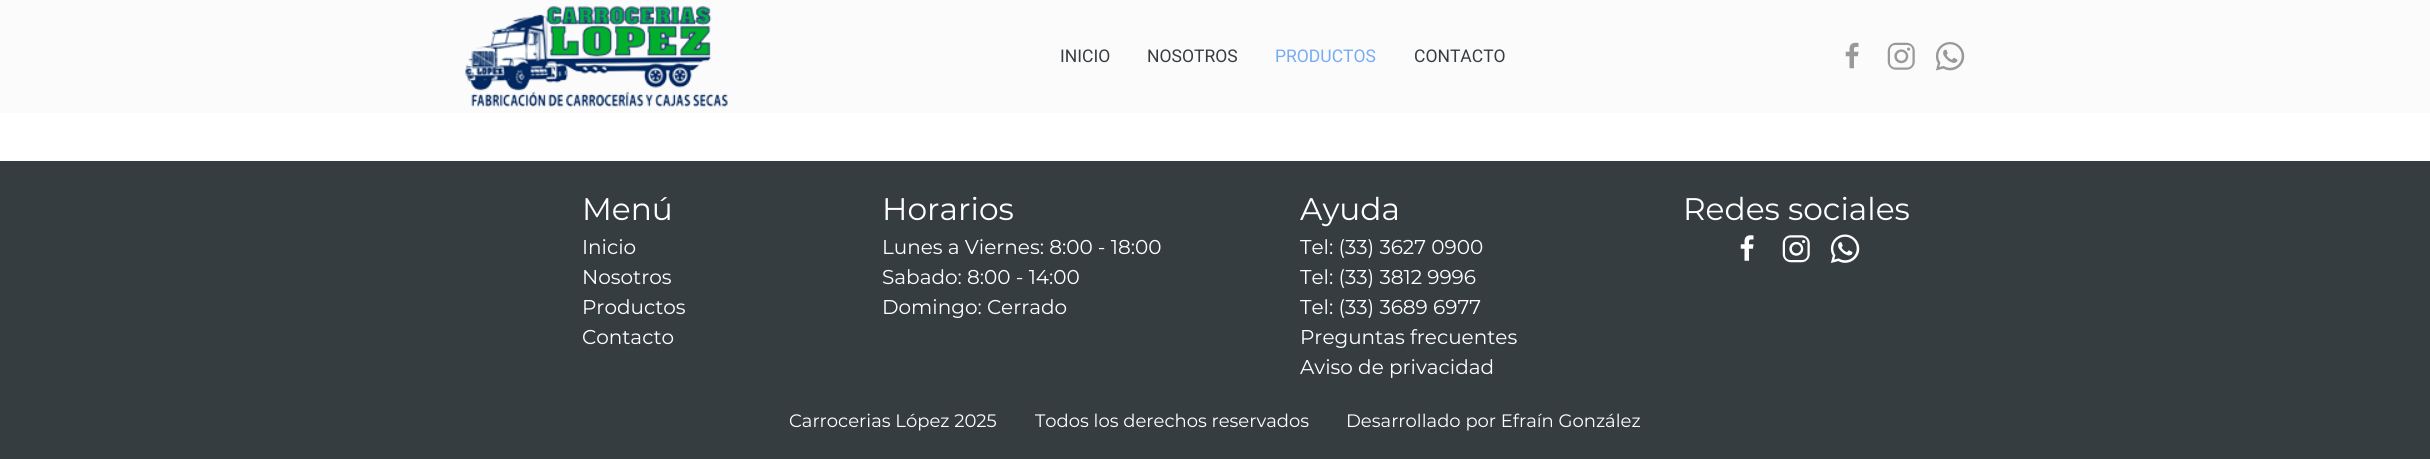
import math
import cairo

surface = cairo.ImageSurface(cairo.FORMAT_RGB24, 2430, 459)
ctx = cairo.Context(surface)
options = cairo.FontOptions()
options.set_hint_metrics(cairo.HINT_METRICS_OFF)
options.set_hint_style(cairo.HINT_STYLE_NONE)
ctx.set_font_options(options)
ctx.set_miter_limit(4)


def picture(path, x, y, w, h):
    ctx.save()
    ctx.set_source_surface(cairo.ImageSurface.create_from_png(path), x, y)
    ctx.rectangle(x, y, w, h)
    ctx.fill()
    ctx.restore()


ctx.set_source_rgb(1, 1, 1)
ctx.paint()
ctx.set_source_rgb(0.984, 0.984, 0.984)
ctx.rectangle(0, 0, 2430, 113)
ctx.fill()
picture("img1.png", 465, 6, 263, 101)
ctx.select_font_face("Roboto")
ctx.set_font_size(17.5)
ctx.set_source_rgb(0.212, 0.239, 0.255)
ctx.move_to(1060, 62)
ctx.show_text("INICIO")
ctx.move_to(1147, 62)
ctx.show_text("NOSOTROS")
ctx.set_source_rgb(0.471, 0.671, 0.945)
ctx.move_to(1275, 62)
ctx.show_text("PRODUCTOS")
ctx.set_source_rgb(0.212, 0.239, 0.255)
ctx.move_to(1414, 62)
ctx.show_text("CONTACTO")
picture("img2.png", 1845, 42, 14, 27)
picture("img3.png", 1887, 42, 28, 28)
picture("img4.png", 1935, 42, 30, 29)
ctx.rectangle(0, 161, 2430, 298)
ctx.fill()
ctx.select_font_face("Montserrat")
ctx.set_font_size(31.25)
ctx.set_source_rgb(1, 1, 1)
ctx.move_to(582, 220)
ctx.show_text("Menú")
ctx.set_font_size(20)
ctx.move_to(582, 254)
ctx.show_text("Inicio")
ctx.move_to(582, 284)
ctx.show_text("Nosotros")
ctx.move_to(582, 314)
ctx.show_text("Productos")
ctx.move_to(582, 344)
ctx.show_text("Contacto")
ctx.set_font_size(31.25)
ctx.move_to(882, 220)
ctx.show_text("Horarios")
ctx.set_font_size(20)
ctx.move_to(882, 254)
ctx.show_text("Lunes a Viernes: 8:00 - 18:00")
ctx.move_to(882, 284)
ctx.show_text("Sabado: 8:00 - 14:00")
ctx.move_to(882, 314)
ctx.show_text("Domingo: Cerrado")
ctx.set_font_size(31.25)
ctx.move_to(1300, 220)
ctx.show_text("Ayuda")
ctx.set_font_size(20)
ctx.move_to(1300, 254)
ctx.show_text("Tel: (33) 3627 0900")
ctx.move_to(1300, 284)
ctx.show_text("Tel: (33) 3812 9996")
ctx.move_to(1300, 314)
ctx.show_text("Tel: (33) 3689 6977")
ctx.move_to(1300, 344)
ctx.show_text("Preguntas frecuentes")
ctx.move_to(1300, 374)
ctx.show_text("Aviso de privacidad")
ctx.set_font_size(31.25)
ctx.move_to(1683, 220)
ctx.show_text("Redes sociales")
picture("img5.png", 1740, 235, 14, 26)
picture("img6.png", 1782, 235, 28, 28)
picture("img7.png", 1830, 234, 30, 29)
ctx.set_font_size(18)
ctx.move_to(789, 427)
ctx.show_text("Carrocerias López 2025")
ctx.move_to(1035, 427)
ctx.show_text("Todos los derechos reservados")
ctx.move_to(1346, 427)
ctx.show_text("Desarrollado por Efraín González")
surface.write_to_png("page.png")
